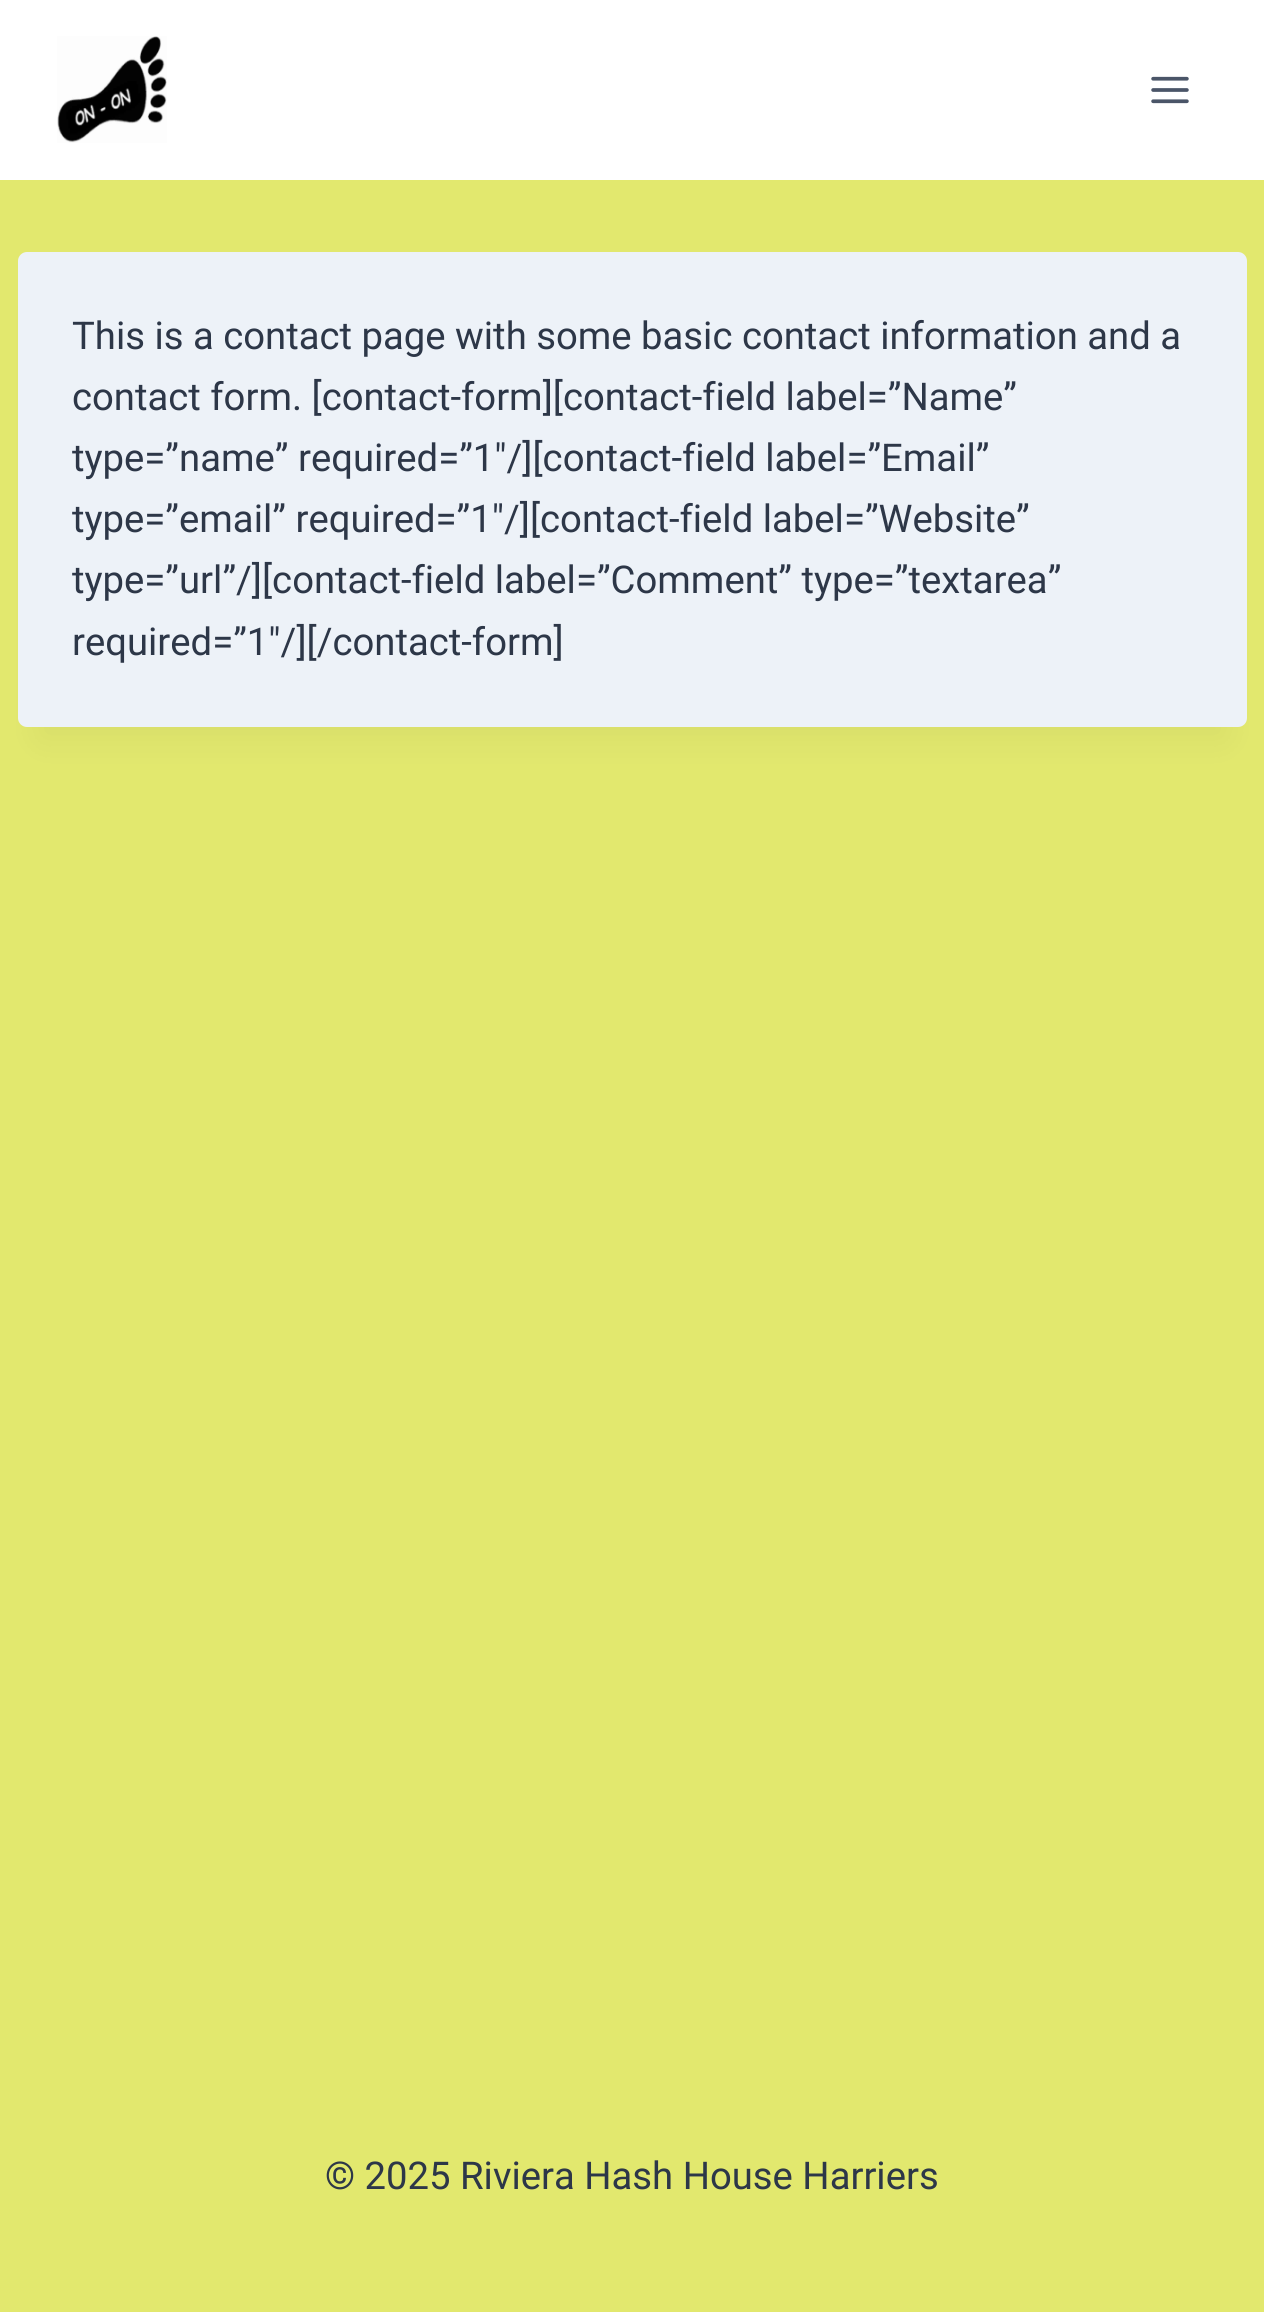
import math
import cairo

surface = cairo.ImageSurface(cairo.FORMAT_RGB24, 1264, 2312)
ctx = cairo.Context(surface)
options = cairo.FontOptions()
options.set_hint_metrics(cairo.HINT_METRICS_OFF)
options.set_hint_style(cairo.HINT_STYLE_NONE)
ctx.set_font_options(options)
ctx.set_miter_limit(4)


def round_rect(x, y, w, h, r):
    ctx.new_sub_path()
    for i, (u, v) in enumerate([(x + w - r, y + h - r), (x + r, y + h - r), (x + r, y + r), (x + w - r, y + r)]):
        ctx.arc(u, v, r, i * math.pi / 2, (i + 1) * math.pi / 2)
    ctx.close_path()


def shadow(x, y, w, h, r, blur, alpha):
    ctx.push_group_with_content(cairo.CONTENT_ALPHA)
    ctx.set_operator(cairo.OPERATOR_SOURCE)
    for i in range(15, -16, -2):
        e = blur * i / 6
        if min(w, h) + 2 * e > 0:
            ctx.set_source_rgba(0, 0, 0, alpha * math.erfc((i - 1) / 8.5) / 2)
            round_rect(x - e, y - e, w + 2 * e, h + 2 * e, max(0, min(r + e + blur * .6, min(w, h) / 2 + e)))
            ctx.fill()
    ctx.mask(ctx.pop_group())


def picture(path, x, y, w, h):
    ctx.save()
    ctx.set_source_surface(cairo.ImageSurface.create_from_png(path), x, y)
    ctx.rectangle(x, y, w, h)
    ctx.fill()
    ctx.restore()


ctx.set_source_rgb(0.886, 0.91, 0.431)
ctx.paint()
ctx.set_source_rgb(1, 1, 1)
ctx.rectangle(0, 0, 1264, 180)
ctx.fill()
picture("img1.png", 57, 36, 110, 107)
picture("img2.png", 1151, 76, 38, 28)
ctx.set_source_rgb(0, 0, 0)
shadow(41, 308, 1183, 430, 0, 17, 0.05)
ctx.set_source_rgb(0.929, 0.949, 0.969)
round_rect(18, 252, 1229, 475, 9)
ctx.fill()
ctx.select_font_face("Roboto")
ctx.set_font_size(38.25)
ctx.set_source_rgb(0.176, 0.216, 0.282)
ctx.move_to(72, 349)
ctx.show_text("This is a contact page with some basic contact information and a")
ctx.move_to(72, 410)
ctx.show_text("contact form. [contact-form][contact-field label=”Name”")
ctx.move_to(72, 471)
ctx.show_text("type=”name” required=”1″/][contact-field label=”Email”")
ctx.move_to(72, 532)
ctx.show_text("type=”email” required=”1″/][contact-field label=”Website”")
ctx.move_to(72, 593)
ctx.show_text("type=”url”/][contact-field label=”Comment” type=”textarea”")
ctx.move_to(72, 655)
ctx.show_text("required=”1″/][/contact-form]")
ctx.move_to(325, 2189)
ctx.show_text("© 2025 Riviera Hash House Harriers")
surface.write_to_png("page.png")
